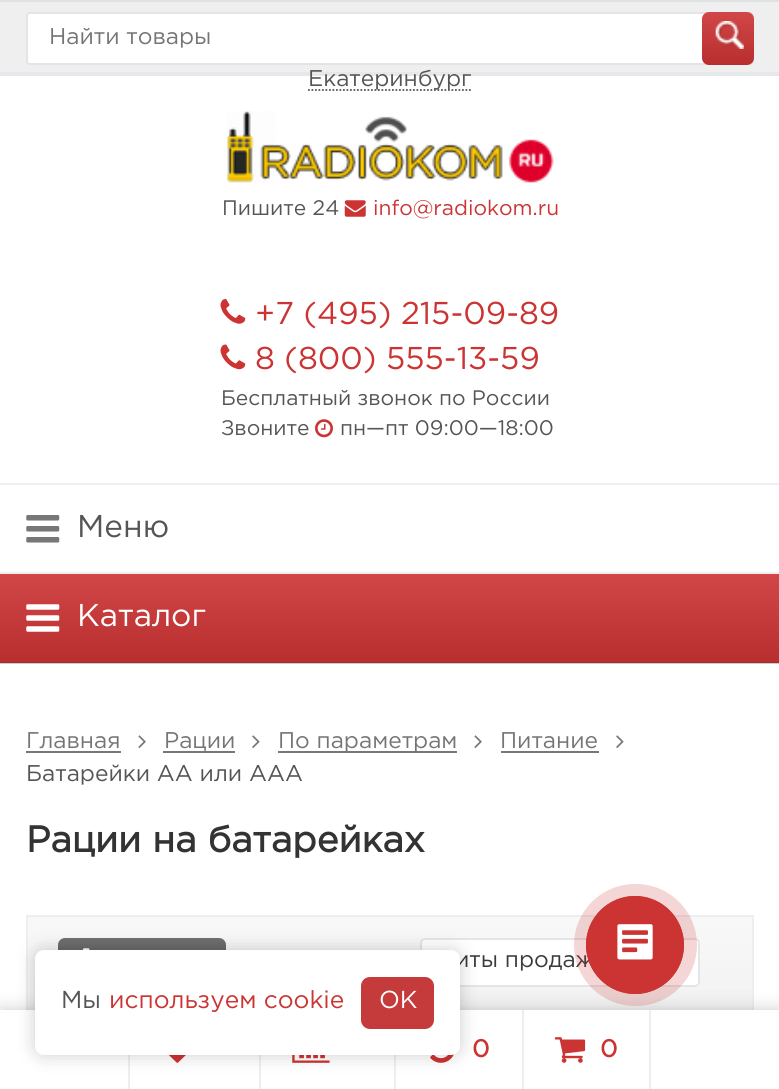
import math
import cairo

surface = cairo.ImageSurface(cairo.FORMAT_RGB24, 779, 1089)
ctx = cairo.Context(surface)
options = cairo.FontOptions()
options.set_hint_metrics(cairo.HINT_METRICS_OFF)
options.set_hint_style(cairo.HINT_STYLE_NONE)
ctx.set_font_options(options)
ctx.set_miter_limit(4)


def round_rect(x, y, w, h, r):
    ctx.new_sub_path()
    for i, (u, v) in enumerate([(x + w - r, y + h - r), (x + r, y + h - r), (x + r, y + r), (x + w - r, y + r)]):
        ctx.arc(u, v, r, i * math.pi / 2, (i + 1) * math.pi / 2)
    ctx.close_path()


def shadow(x, y, w, h, r, blur, alpha):
    ctx.push_group_with_content(cairo.CONTENT_ALPHA)
    ctx.set_operator(cairo.OPERATOR_SOURCE)
    for i in range(15, -16, -2):
        e = blur * i / 6
        if min(w, h) + 2 * e > 0:
            ctx.set_source_rgba(0, 0, 0, alpha * math.erfc((i - 1) / 8.5) / 2)
            round_rect(x - e, y - e, w + 2 * e, h + 2 * e, max(0, min(r + e + blur * .6, min(w, h) / 2 + e)))
            ctx.fill()
    ctx.mask(ctx.pop_group())


def picture(path, x, y, w, h):
    ctx.save()
    ctx.set_source_surface(cairo.ImageSurface.create_from_png(path), x, y)
    ctx.rectangle(x, y, w, h)
    ctx.fill()
    ctx.restore()


ctx.set_source_rgb(1, 1, 1)
ctx.paint()
ctx.set_source_rgb(0.8, 0.8, 0.8)
ctx.rectangle(0, 663, 779, 1)
ctx.fill()
ctx.set_source_rgb(0.941, 0.937, 0.941)
ctx.rectangle(0, 2, 779, 72)
ctx.fill()
ctx.set_source_rgb(0.902, 0.91, 0.918)
round_rect(0, 72, 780, 2, 1)
ctx.fill()
ctx.rectangle(0, 74, 779, 2)
ctx.fill()
ctx.set_source_rgb(0.886, 0.882, 0.886)
ctx.rectangle(0, 0, 779, 2)
ctx.fill()
ctx.set_source_rgb(1, 1, 1)
round_rect(27, 13, 726, 51, 3)
ctx.fill_preserve()
ctx.set_source_rgb(0.894, 0.894, 0.894)
ctx.stroke()
ctx.save()
ctx.rectangle(49, 28, 630, 21)
ctx.clip()
ctx.select_font_face("Gotham")
ctx.set_font_size(22.75)
ctx.set_source_rgb(0.459, 0.459, 0.459)
ctx.move_to(49, 44)
ctx.show_text("Найти товары")
ctx.restore()
gradient = cairo.LinearGradient(728, 12, 728, 65)
gradient.add_color_stop_rgba(0, 0.82, 0.278, 0.278, 1)
gradient.add_color_stop_rgba(1, 0.722, 0.18, 0.18, 1)
ctx.set_source(gradient)
round_rect(702, 12, 52, 53, 7)
ctx.fill()
picture("img1.png", 715, 21, 29, 28)
ctx.new_path()
ctx.move_to(308, 90)
ctx.line_to(472.5, 90)
ctx.set_source_rgb(0.333, 0.333, 0.333)
ctx.set_line_width(1.8)
ctx.set_dash([1.75, 1.75])
ctx.stroke()
ctx.select_font_face("Gotham")
ctx.set_font_size(22.75)
ctx.move_to(308, 86)
ctx.show_text("Екатеринбург")
picture("img2.png", 227, 111, 327, 72)
ctx.set_font_size(21)
ctx.move_to(222, 215)
ctx.show_text("Пишите 24")
picture("img3.png", 344, 200, 22, 17)
ctx.set_source_rgb(0.8, 0.2, 0.2)
ctx.move_to(373, 215)
ctx.show_text("info@radiokom.ru")
picture("img4.png", 220, 299, 26, 25)
ctx.set_font_size(31.5)
ctx.move_to(255, 324)
ctx.show_text("+7 (495) 215-09-89")
picture("img5.png", 220, 344, 26, 26)
ctx.move_to(255, 369)
ctx.show_text("8 (800) 555-13-59")
ctx.set_font_size(21)
ctx.set_source_rgb(0.333, 0.333, 0.333)
ctx.move_to(221, 405)
ctx.show_text("Бесплатный звонок по России")
ctx.move_to(221, 435)
ctx.show_text("Звоните")
picture("img6.png", 315, 419, 18, 19)
ctx.move_to(340, 435)
ctx.show_text("пн—пт 09:00—18:00")
ctx.set_source_rgb(0.933, 0.937, 0.941)
ctx.rectangle(0, 483, 779, 2)
ctx.fill()
ctx.rectangle(0, 572, 779, 2)
ctx.fill()
picture("img7.png", 26, 515, 34, 28)
ctx.set_font_size(31.5)
ctx.set_source_rgb(0.333, 0.333, 0.333)
ctx.move_to(77, 537)
ctx.show_text("Меню")
ctx.set_source_rgb(0.62, 0.184, 0.184)
ctx.rectangle(0, 662, 779, 1)
ctx.fill()
gradient = cairo.LinearGradient(390, 574, 390, 662)
gradient.add_color_stop_rgba(0, 0.82, 0.278, 0.278, 1)
gradient.add_color_stop_rgba(1, 0.722, 0.18, 0.18, 1)
ctx.set_source(gradient)
ctx.rectangle(0, 574, 779, 88)
ctx.fill()
picture("img8.png", 26, 604, 34, 28)
ctx.set_source_rgb(1, 1, 1)
ctx.move_to(77, 626)
ctx.show_text("Каталог")
ctx.set_font_size(22.75)
ctx.set_source_rgb(0.459, 0.459, 0.459)
ctx.move_to(26, 748)
ctx.show_text("Главная")
ctx.set_source_rgb(0.467, 0.467, 0.467)
ctx.rectangle(26, 751, 95, 2)
ctx.fill()
picture("img9.png", 138, 735, 8, 13)
ctx.set_source_rgb(0.459, 0.459, 0.459)
ctx.move_to(164, 748)
ctx.show_text("Рации")
ctx.set_source_rgb(0.467, 0.467, 0.467)
ctx.rectangle(163, 751, 72, 2)
ctx.fill()
picture("img10.png", 252, 735, 8, 13)
ctx.rectangle(278, 751, 179, 2)
ctx.fill()
ctx.set_source_rgb(0.459, 0.459, 0.459)
ctx.move_to(278, 748)
ctx.show_text("По параметрам")
picture("img9.png", 474, 735, 8, 13)
ctx.move_to(500, 748)
ctx.show_text("Питание")
ctx.set_source_rgb(0.467, 0.467, 0.467)
ctx.rectangle(501, 751, 98, 2)
ctx.fill()
picture("img10.png", 616, 735, 8, 13)
ctx.set_source_rgb(0.333, 0.333, 0.333)
ctx.move_to(26, 781)
ctx.show_text("Батарейки АА или ААА")
ctx.select_font_face("Gotham", cairo.FONT_SLANT_NORMAL, cairo.FONT_WEIGHT_BOLD)
ctx.set_font_size(36.75)
ctx.set_source_rgb(0.2, 0.2, 0.2)
ctx.move_to(26, 852)
ctx.show_text("Рации на батарейках")
gradient = cairo.LinearGradient(390, 917, 390, 1078)
gradient.add_color_stop_rgba(0, 0.973, 0.973, 0.973, 1)
gradient.add_color_stop_rgba(1, 0.933, 0.933, 0.933, 1)
ctx.set_source(gradient)
ctx.rectangle(28, 917, 724, 93)
ctx.fill()
ctx.rectangle(27, 916, 726, 163)
ctx.set_source_rgb(0.933, 0.933, 0.933)
ctx.set_line_width(2)
ctx.set_dash([])
ctx.stroke()
gradient = cairo.LinearGradient(142, 938, 142, 987)
gradient.add_color_stop_rgba(0, 0.439, 0.443, 0.435, 1)
gradient.add_color_stop_rgba(1, 0.298, 0.302, 0.298, 1)
ctx.set_source(gradient)
round_rect(58, 938, 168, 49, 7)
ctx.fill()
picture("img11.png", 83, 948, 7, 2)
ctx.set_source_rgb(1, 1, 1)
round_rect(421, 939, 278, 47, 4)
ctx.fill_preserve()
ctx.set_source_rgb(0.898, 0.898, 0.898)
ctx.stroke()
ctx.select_font_face("Gotham")
ctx.set_font_size(22.75)
ctx.set_source_rgb(0.227, 0.227, 0.227)
ctx.move_to(455, 967)
ctx.show_text("иты продаж")
picture("img12.png", 680, 958, 3, 4)
ctx.set_source_rgb(0, 0, 0)
shadow(0, 1010, 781, 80, 0, 9, 0.2)
ctx.set_source_rgb(1, 1, 1)
ctx.rectangle(0, 1010, 779, 79)
ctx.fill()
ctx.set_source_rgb(0.933, 0.933, 0.933)
ctx.rectangle(394, 1055, 2, 34)
ctx.fill()
picture("img13.png", 430, 1054, 24, 9)
ctx.select_font_face("Gotham", cairo.FONT_SLANT_NORMAL, cairo.FONT_WEIGHT_BOLD)
ctx.set_font_size(24.5)
ctx.set_source_rgb(0.8, 0.2, 0.2)
ctx.move_to(472, 1057)
ctx.show_text("0")
ctx.set_source_rgb(0.933, 0.933, 0.933)
ctx.rectangle(649, 1010, 2, 79)
ctx.fill()
ctx.rectangle(522, 1010, 2, 79)
ctx.fill()
picture("img14.png", 554, 1037, 32, 26)
ctx.set_source_rgb(0.8, 0.2, 0.2)
ctx.move_to(600, 1057)
ctx.show_text("0")
ctx.set_source_rgb(0.933, 0.933, 0.933)
ctx.rectangle(128, 1055, 2, 34)
ctx.fill()
picture("img15.png", 168, 1055, 18, 8)
ctx.rectangle(259, 1055, 2, 34)
ctx.fill()
picture("img16.png", 292, 1055, 38, 8)
ctx.set_source_rgba(0.8, 0.2, 0.2, 0.2)
round_rect(574, 884, 123, 122, 61)
ctx.fill()
ctx.arc(635, 945, 48.5, 0, 2 * math.pi)
ctx.set_source_rgb(0.8, 0.2, 0.2)
ctx.set_line_width(1)
ctx.stroke()
ctx.arc(635, 945, 49, 0, 2 * math.pi)
ctx.fill()
picture("img17.png", 617, 924, 36, 36)
ctx.set_source_rgb(0, 0, 0)
shadow(35, 950, 425, 105, 9, 9, 0.2)
ctx.set_source_rgb(1, 1, 1)
round_rect(35, 950, 425, 105, 9)
ctx.fill()
ctx.select_font_face("Gotham")
ctx.set_source_rgb(0.333, 0.333, 0.333)
ctx.move_to(61, 1008)
ctx.show_text("Мы")
ctx.set_source_rgb(0.8, 0.2, 0.2)
ctx.move_to(109, 1008)
ctx.show_text("используем cookie")
ctx.set_source_rgb(0.773, 0.231, 0.231)
round_rect(361, 977, 73, 52, 9)
ctx.fill()
ctx.set_source_rgb(1, 1, 1)
ctx.move_to(379, 1008)
ctx.show_text("OK")
surface.write_to_png("page.png")
